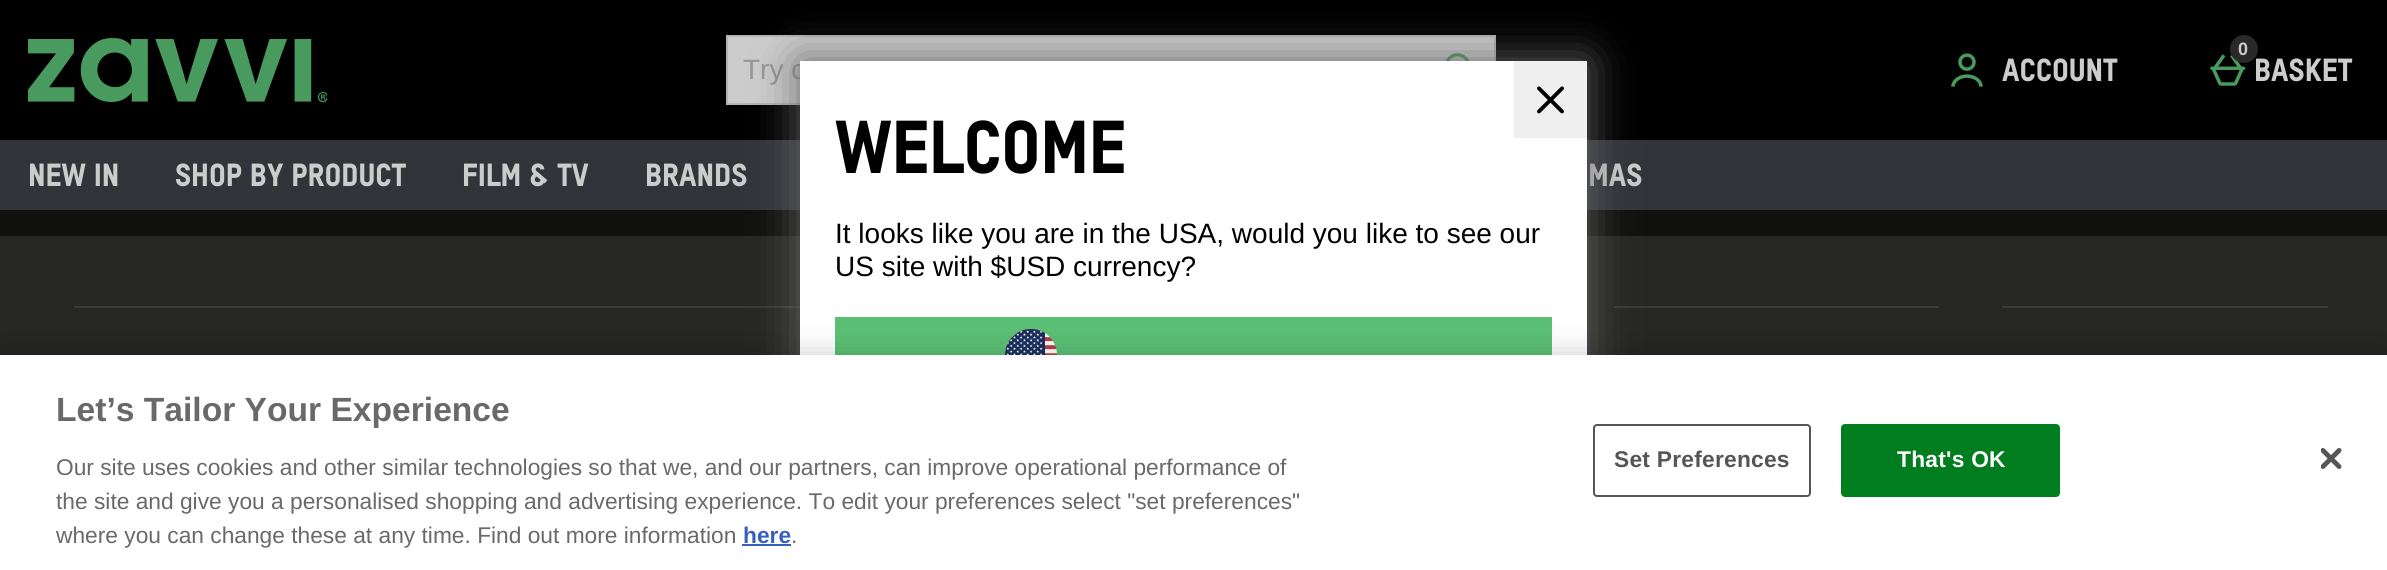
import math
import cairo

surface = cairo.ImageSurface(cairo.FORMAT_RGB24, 2387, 570)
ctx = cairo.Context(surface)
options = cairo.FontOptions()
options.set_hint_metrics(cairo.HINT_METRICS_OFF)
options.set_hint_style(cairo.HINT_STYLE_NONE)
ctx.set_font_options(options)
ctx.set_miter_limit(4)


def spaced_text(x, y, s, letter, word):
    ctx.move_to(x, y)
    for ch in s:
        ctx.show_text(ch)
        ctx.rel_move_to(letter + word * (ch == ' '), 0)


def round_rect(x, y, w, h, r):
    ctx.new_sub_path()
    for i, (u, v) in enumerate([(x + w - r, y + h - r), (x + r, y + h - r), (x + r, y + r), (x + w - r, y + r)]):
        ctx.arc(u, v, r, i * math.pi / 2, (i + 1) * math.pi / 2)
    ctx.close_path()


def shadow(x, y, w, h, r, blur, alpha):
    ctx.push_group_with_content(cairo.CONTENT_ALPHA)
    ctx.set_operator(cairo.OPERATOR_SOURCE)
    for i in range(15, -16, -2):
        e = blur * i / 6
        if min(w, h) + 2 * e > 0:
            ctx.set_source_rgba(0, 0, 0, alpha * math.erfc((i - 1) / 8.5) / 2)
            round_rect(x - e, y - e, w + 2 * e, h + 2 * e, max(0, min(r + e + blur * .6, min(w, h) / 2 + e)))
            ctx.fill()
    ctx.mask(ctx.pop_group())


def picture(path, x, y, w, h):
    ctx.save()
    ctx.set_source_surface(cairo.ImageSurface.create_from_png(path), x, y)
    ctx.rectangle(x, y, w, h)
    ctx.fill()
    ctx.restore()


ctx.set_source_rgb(0.063, 0.063, 0.055)
ctx.paint()
ctx.set_source_rgb(0, 0, 0)
ctx.rectangle(0, 0, 2387, 140)
ctx.fill()
picture("img1.png", 28, 38, 299, 65)
ctx.set_source_rgb(0.8, 0.8, 0.8)
ctx.rectangle(727, 36, 768, 68)
ctx.fill_preserve()
ctx.set_source_rgb(0.706, 0.706, 0.706)
ctx.stroke()
picture("img2.png", 1445, 53, 25, 8)
ctx.select_font_face("Liberation Sans")
ctx.set_font_size(28)
ctx.set_source_rgb(0.584, 0.584, 0.584)
ctx.move_to(743, 79)
ctx.show_text("Try o")
picture("img3.png", 1951, 53, 32, 34)
ctx.select_font_face("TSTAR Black")
ctx.set_font_size(31.5)
ctx.set_source_rgb(0.8, 0.8, 0.8)
ctx.move_to(2002, 81)
ctx.show_text("ACCOUNT")
picture("img4.png", 2210, 54, 36, 32)
ctx.move_to(2254, 81)
ctx.show_text("BASKET")
ctx.set_source_rgb(0.161, 0.161, 0.161)
ctx.new_path()
ctx.arc(2244, 49, 14, 0, 2 * math.pi)
ctx.fill()
ctx.select_font_face("Liberation Sans", cairo.FONT_SLANT_NORMAL, cairo.FONT_WEIGHT_BOLD)
ctx.set_font_size(18)
ctx.set_source_rgb(0.8, 0.8, 0.8)
ctx.move_to(2238, 55)
ctx.show_text("0")
ctx.set_source_rgb(0.2, 0.204, 0.227)
ctx.rectangle(0, 140, 2387, 70)
ctx.fill()
ctx.select_font_face("TSTAR Black")
ctx.set_font_size(31.5)
ctx.set_source_rgb(0.8, 0.8, 0.8)
ctx.move_to(28, 186)
ctx.show_text("NEW IN")
ctx.move_to(175, 186)
ctx.show_text("SHOP BY PRODUCT")
ctx.move_to(462, 186)
ctx.show_text("FILM & TV")
ctx.move_to(645, 186)
ctx.show_text("BRANDS")
ctx.move_to(1588, 186)
ctx.show_text("MAS")
ctx.set_source_rgb(0.149, 0.149, 0.133)
ctx.rectangle(0, 236, 2387, 119)
ctx.fill()
ctx.set_source_rgb(0.231, 0.231, 0.208)
ctx.rectangle(74, 306, 726, 2)
ctx.fill()
ctx.rectangle(1614, 306, 325, 2)
ctx.fill()
ctx.rectangle(2002, 306, 326, 2)
ctx.fill()
ctx.set_source_rgb(0.4, 0.4, 0.4)
shadow(800, 61, 787, 448, 0, 22, 1)
ctx.set_source_rgb(1, 1, 1)
ctx.rectangle(800, 61, 787, 294)
ctx.fill()
ctx.set_source_rgb(0.937, 0.937, 0.937)
ctx.rectangle(1514, 61, 73, 77)
ctx.fill()
picture("img5.png", 1537, 86, 27, 28)
ctx.set_font_size(73.5)
ctx.set_source_rgb(0, 0, 0)
ctx.move_to(835, 173)
ctx.show_text("WELCOME")
ctx.select_font_face("Liberation Sans")
ctx.set_font_size(28)
ctx.move_to(835, 243)
ctx.show_text("It looks like you are in the USA, would you like to see our")
ctx.move_to(835, 276)
ctx.show_text("US site with $USD currency?")
ctx.set_source_rgb(0.357, 0.753, 0.459)
ctx.rectangle(835, 317, 717, 38)
ctx.fill()
picture("img6.png", 1005, 329, 52, 26)
ctx.set_source_rgb(0, 0, 0)
shadow(0, 355, 2387, 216, 0, 16, 0.2)
ctx.set_source_rgb(1, 1, 1)
ctx.rectangle(0, 355, 2387, 215)
ctx.fill()
ctx.select_font_face("Liberation Sans", cairo.FONT_SLANT_NORMAL, cairo.FONT_WEIGHT_BOLD)
ctx.set_font_size(33.6)
ctx.set_source_rgb(0.412, 0.412, 0.412)
ctx.move_to(56, 421)
ctx.show_text("Let’s Tailor Your Experience")
ctx.select_font_face("Liberation Sans")
ctx.set_font_size(22.75)
ctx.move_to(56, 475)
ctx.show_text("Our site uses cookies and other similar technologies so that we, and our partners, can improve operational performance of")
ctx.move_to(56, 509)
ctx.show_text("the site and give you a personalised shopping and advertising experience. To edit your preferences select \"set preferences\"")
ctx.move_to(56, 543)
ctx.show_text("where you can change these at any time. Find out more information")
ctx.select_font_face("Liberation Sans", cairo.FONT_SLANT_NORMAL, cairo.FONT_WEIGHT_BOLD)
ctx.set_source_rgb(0.22, 0.376, 0.745)
ctx.move_to(743, 543)
ctx.show_text("here")
ctx.rectangle(742, 544, 49, 2)
ctx.fill()
ctx.select_font_face("Liberation Sans")
ctx.set_source_rgb(0.412, 0.412, 0.412)
ctx.move_to(791, 543)
ctx.show_text(".")
round_rect(1594, 425, 216, 71, 3)
ctx.set_source_rgb(0.333, 0.333, 0.333)
ctx.stroke()
ctx.select_font_face("Liberation Sans", cairo.FONT_SLANT_NORMAL, cairo.FONT_WEIGHT_BOLD)
spaced_text(1614, 467, "Set Preferences", 0.25, 0)
ctx.set_source_rgb(0, 0.49, 0.118)
round_rect(1842, 425, 217, 71, 3)
ctx.fill_preserve()
ctx.stroke()
ctx.set_source_rgb(1, 1, 1)
spaced_text(1897, 467, "That's OK", 0.25, 0)
picture("img7.png", 2321, 448, 21, 21)
surface.write_to_png("page.png")
